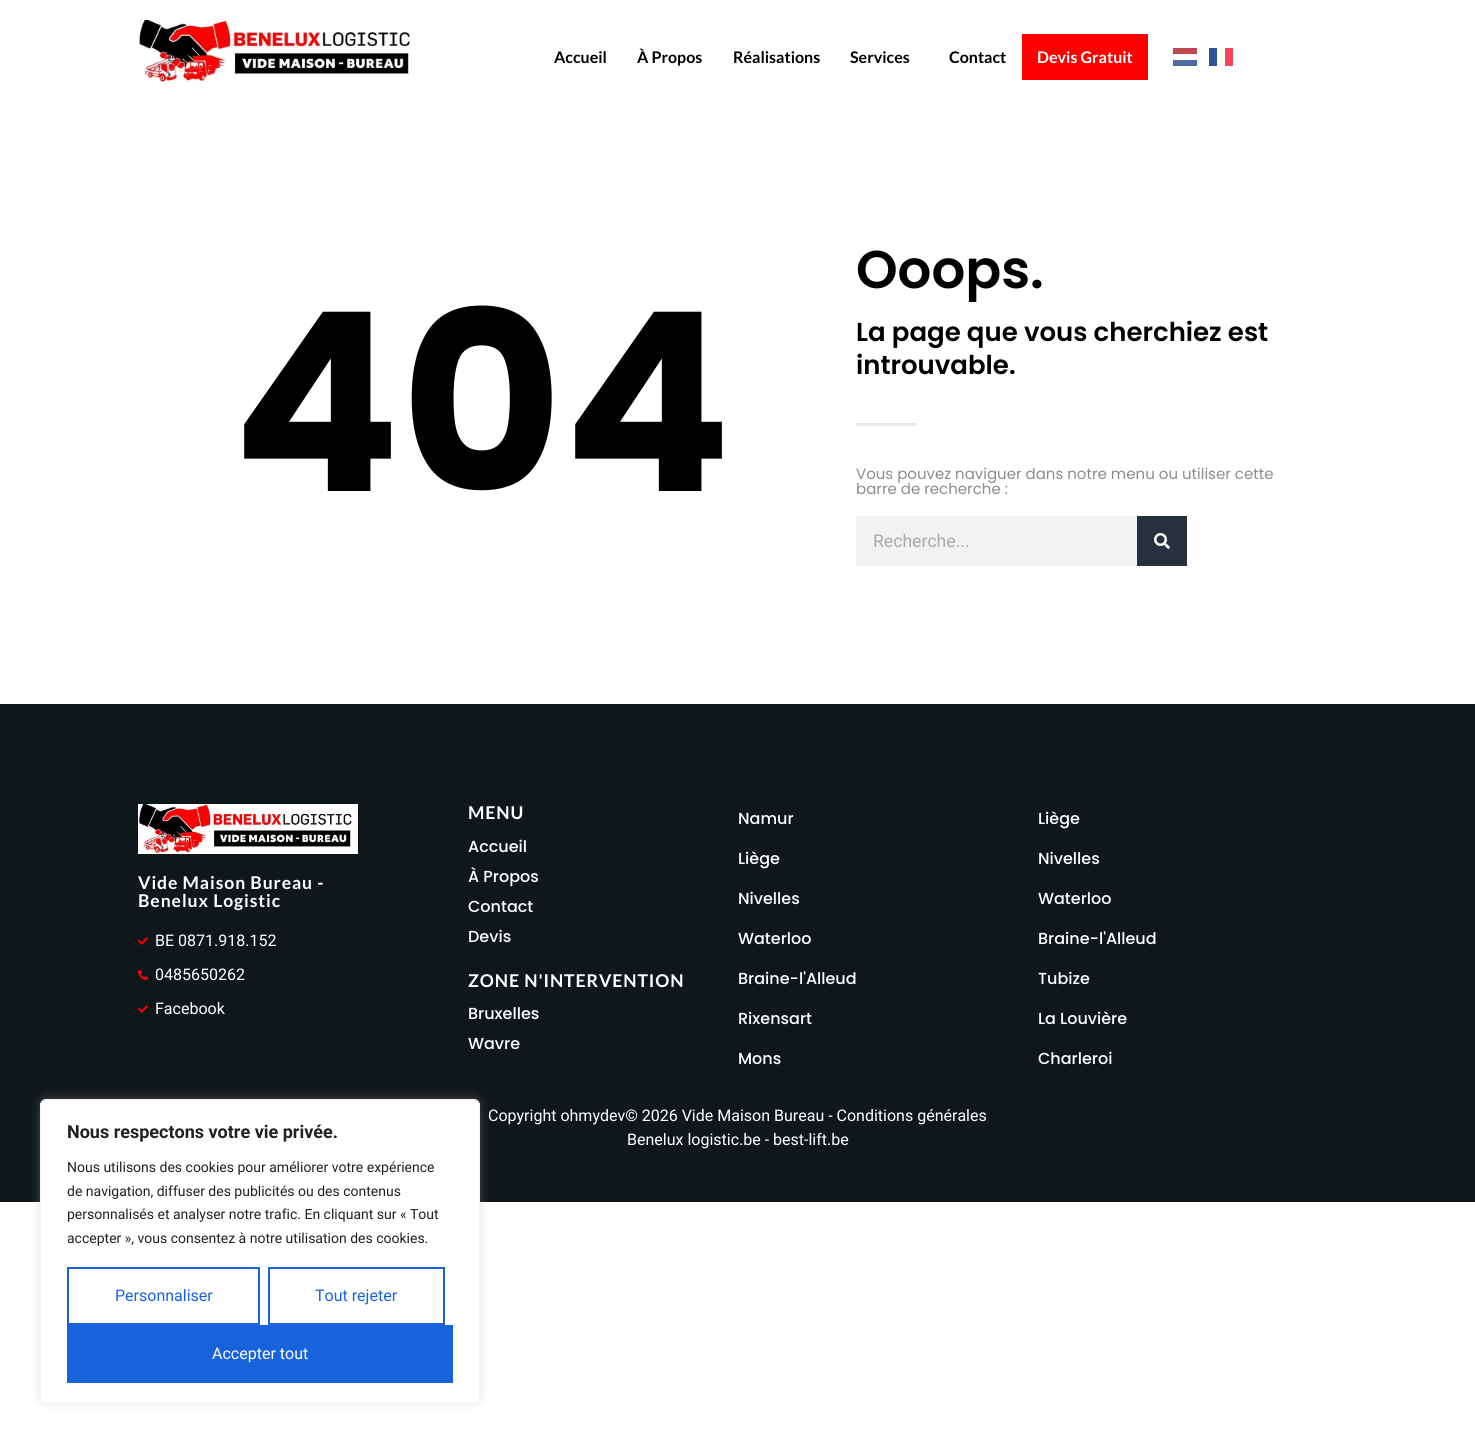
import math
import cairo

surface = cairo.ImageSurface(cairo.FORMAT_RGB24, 1475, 1444)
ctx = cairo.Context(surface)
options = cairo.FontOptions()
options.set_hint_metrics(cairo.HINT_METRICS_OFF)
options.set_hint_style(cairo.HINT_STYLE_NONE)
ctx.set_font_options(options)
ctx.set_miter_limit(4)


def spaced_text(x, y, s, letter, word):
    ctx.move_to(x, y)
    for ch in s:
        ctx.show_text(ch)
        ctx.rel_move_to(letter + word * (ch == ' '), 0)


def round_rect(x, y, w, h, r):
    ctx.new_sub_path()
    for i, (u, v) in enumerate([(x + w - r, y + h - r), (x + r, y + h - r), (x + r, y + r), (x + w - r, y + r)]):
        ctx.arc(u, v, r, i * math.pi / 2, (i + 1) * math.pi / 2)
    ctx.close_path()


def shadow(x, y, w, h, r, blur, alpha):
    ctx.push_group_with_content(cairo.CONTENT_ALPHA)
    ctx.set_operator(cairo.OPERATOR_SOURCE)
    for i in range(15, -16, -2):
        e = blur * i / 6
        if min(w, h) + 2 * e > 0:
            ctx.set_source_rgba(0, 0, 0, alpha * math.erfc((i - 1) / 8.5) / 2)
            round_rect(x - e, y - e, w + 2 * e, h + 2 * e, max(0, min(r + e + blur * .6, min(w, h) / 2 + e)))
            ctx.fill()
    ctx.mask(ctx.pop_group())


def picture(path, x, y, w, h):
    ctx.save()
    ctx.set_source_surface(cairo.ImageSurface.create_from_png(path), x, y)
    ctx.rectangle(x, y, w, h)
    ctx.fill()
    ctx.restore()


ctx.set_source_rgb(1, 1, 1)
ctx.paint()
picture("img1.png", 139, 20, 272, 63)
ctx.select_font_face("Lato", cairo.FONT_SLANT_NORMAL, cairo.FONT_WEIGHT_BOLD)
ctx.set_font_size(16)
ctx.set_source_rgb(0, 0, 0)
ctx.move_to(554, 63)
ctx.show_text("Accueil")
ctx.move_to(637, 63)
ctx.show_text("À Propos")
ctx.move_to(733, 63)
ctx.show_text("Réalisations")
ctx.move_to(850, 63)
ctx.show_text("Services")
ctx.move_to(949, 63)
ctx.show_text("Contact")
ctx.set_source_rgb(1, 0, 0)
ctx.rectangle(1022, 34, 126, 46)
ctx.fill()
ctx.set_source_rgb(1, 1, 1)
ctx.move_to(1037, 63)
ctx.show_text("Devis Gratuit")
ctx.set_source_rgb(0.745, 0.286, 0.325)
ctx.rectangle(1173, 48, 24, 6)
ctx.fill()
ctx.set_source_rgb(0.2, 0.318, 0.6)
ctx.rectangle(1209, 48, 8, 18)
ctx.fill()
ctx.set_source_rgb(0.961, 0.275, 0.349)
ctx.rectangle(1225, 48, 8, 18)
ctx.fill()
ctx.set_source_rgb(0.302, 0.42, 0.635)
ctx.rectangle(1173, 60, 24, 6)
ctx.fill()
ctx.select_font_face("Poppins", cairo.FONT_SLANT_NORMAL, cairo.FONT_WEIGHT_BOLD)
ctx.set_font_size(249)
ctx.set_source_rgb(0, 0, 0)
ctx.move_to(232, 491)
ctx.show_text("404")
ctx.select_font_face("Poppins SemiBold")
ctx.set_font_size(53)
ctx.move_to(856, 288)
ctx.show_text("Ooops.")
ctx.set_font_size(26)
ctx.move_to(856, 341)
ctx.show_text("La page que vous cherchiez est")
ctx.move_to(856, 374)
ctx.show_text("introuvable.")
ctx.set_source_rgb(0.91, 0.91, 0.91)
ctx.rectangle(856, 423, 60, 3)
ctx.fill()
ctx.select_font_face("Poppins")
ctx.set_font_size(15)
ctx.set_source_rgb(0.549, 0.549, 0.549)
ctx.move_to(856, 479)
ctx.show_text("Vous pouvez naviguer dans notre menu ou utiliser cette")
ctx.move_to(856, 494)
ctx.show_text("barre de recherche :")
ctx.set_source_rgb(0.945, 0.949, 0.953)
ctx.rectangle(856, 516, 281, 50)
ctx.fill()
ctx.select_font_face("Roboto")
ctx.set_font_size(17.6)
ctx.set_source_rgb(0.667, 0.667, 0.667)
ctx.move_to(873, 547)
ctx.show_text("Recherche...")
ctx.set_source_rgb(0.157, 0.188, 0.239)
ctx.rectangle(1137, 516, 50, 50)
ctx.fill()
picture("img2.png", 1154, 533, 16, 16)
ctx.set_source_rgb(0.063, 0.09, 0.106)
ctx.rectangle(0, 704, 1475, 498)
ctx.fill()
picture("img3.png", 138, 804, 220, 50)
ctx.select_font_face("Lato", cairo.FONT_SLANT_NORMAL, cairo.FONT_WEIGHT_BOLD)
ctx.set_source_rgb(1, 1, 1)
spaced_text(138, 889, "Vide Maison Bureau -", 0.9, 0)
spaced_text(138, 907, "Benelux Logistic", 0.9, 0)
picture("img4.png", 138, 937, 10, 8)
ctx.select_font_face("Roboto")
ctx.set_font_size(16)
ctx.move_to(155, 946)
ctx.show_text("BE 0871.918.152")
picture("img5.png", 138, 970, 10, 10)
ctx.move_to(155, 980)
ctx.show_text("0485650262")
picture("img4.png", 138, 1005, 10, 8)
ctx.move_to(155, 1014)
ctx.show_text("Facebook")
ctx.select_font_face("Lato", cairo.FONT_SLANT_NORMAL, cairo.FONT_WEIGHT_BOLD)
ctx.set_font_size(17.6)
spaced_text(468, 819, "MENU", 0.9, 0)
ctx.select_font_face("Poppins Medium")
ctx.set_font_size(16)
ctx.move_to(468, 852)
ctx.show_text("Accueil")
ctx.move_to(468, 882)
ctx.show_text("À Propos")
ctx.move_to(468, 912)
ctx.show_text("Contact")
ctx.move_to(468, 942)
ctx.show_text("Devis")
ctx.select_font_face("Lato", cairo.FONT_SLANT_NORMAL, cairo.FONT_WEIGHT_BOLD)
ctx.set_font_size(17.6)
spaced_text(468, 987, "ZONE N'INTERVENTION", 0.9, 0)
ctx.select_font_face("Poppins Medium")
ctx.set_font_size(16)
ctx.move_to(468, 1019)
ctx.show_text("Bruxelles")
ctx.move_to(468, 1049)
ctx.show_text("Wavre")
ctx.move_to(738, 824)
ctx.show_text("Namur")
ctx.move_to(738, 864)
ctx.show_text("Liège")
ctx.move_to(738, 904)
ctx.show_text("Nivelles")
ctx.move_to(738, 944)
ctx.show_text("Waterloo")
ctx.move_to(738, 984)
ctx.show_text("Braine-l'Alleud")
ctx.move_to(738, 1024)
ctx.show_text("Rixensart")
ctx.move_to(738, 1064)
ctx.show_text("Mons")
ctx.move_to(1038, 824)
ctx.show_text("Liège")
ctx.move_to(1038, 864)
ctx.show_text("Nivelles")
ctx.move_to(1038, 904)
ctx.show_text("Waterloo")
ctx.move_to(1038, 944)
ctx.show_text("Braine-l'Alleud")
ctx.move_to(1038, 984)
ctx.show_text("Tubize")
ctx.move_to(1038, 1024)
ctx.show_text("La Louvière")
ctx.move_to(1038, 1064)
ctx.show_text("Charleroi")
ctx.select_font_face("Roboto")
ctx.move_to(488, 1121)
ctx.show_text("Copyright ohmydev© 2026 Vide Maison Bureau - Conditions générales")
ctx.move_to(627, 1145)
ctx.show_text("Benelux logistic.be - best-lift.be")
ctx.set_source_rgb(0.675, 0.671, 0.671)
shadow(40, 1098, 440, 305, 6, 5, 0.3)
ctx.set_source_rgb(1, 1, 1)
round_rect(40.5, 1099.5, 439, 304, 5.5)
ctx.fill_preserve()
ctx.set_source_rgb(0.957, 0.957, 0.957)
ctx.set_line_width(1)
ctx.stroke()
ctx.select_font_face("Roboto", cairo.FONT_SLANT_NORMAL, cairo.FONT_WEIGHT_BOLD)
ctx.set_font_size(18)
ctx.set_source_rgb(0.129, 0.129, 0.129)
ctx.move_to(67, 1138)
ctx.show_text("Nous respectons votre vie privée.")
ctx.select_font_face("Roboto")
ctx.set_font_size(14)
ctx.move_to(67, 1172)
ctx.show_text("Nous utilisons des cookies pour améliorer votre expérience")
ctx.move_to(67, 1196)
ctx.show_text("de navigation, diffuser des publicités ou des contenus")
ctx.move_to(67, 1219)
ctx.show_text("personnalisés et analyser notre trafic. En cliquant sur « Tout")
ctx.move_to(67, 1243)
ctx.show_text("accepter », vous consentez à notre utilisation des cookies.")
ctx.rectangle(68, 1268, 191, 56)
ctx.set_source_rgb(0.094, 0.388, 0.863)
ctx.set_line_width(2)
ctx.stroke()
ctx.set_font_size(16)
ctx.move_to(115, 1301)
ctx.show_text("Personnaliser")
ctx.rectangle(269, 1268, 175, 56)
ctx.stroke()
ctx.move_to(315, 1301)
ctx.show_text("Tout rejeter")
ctx.rectangle(67, 1325, 386, 58)
ctx.fill()
ctx.set_source_rgb(1, 1, 1)
ctx.move_to(212, 1359)
ctx.show_text("Accepter tout")
surface.write_to_png("page.png")
